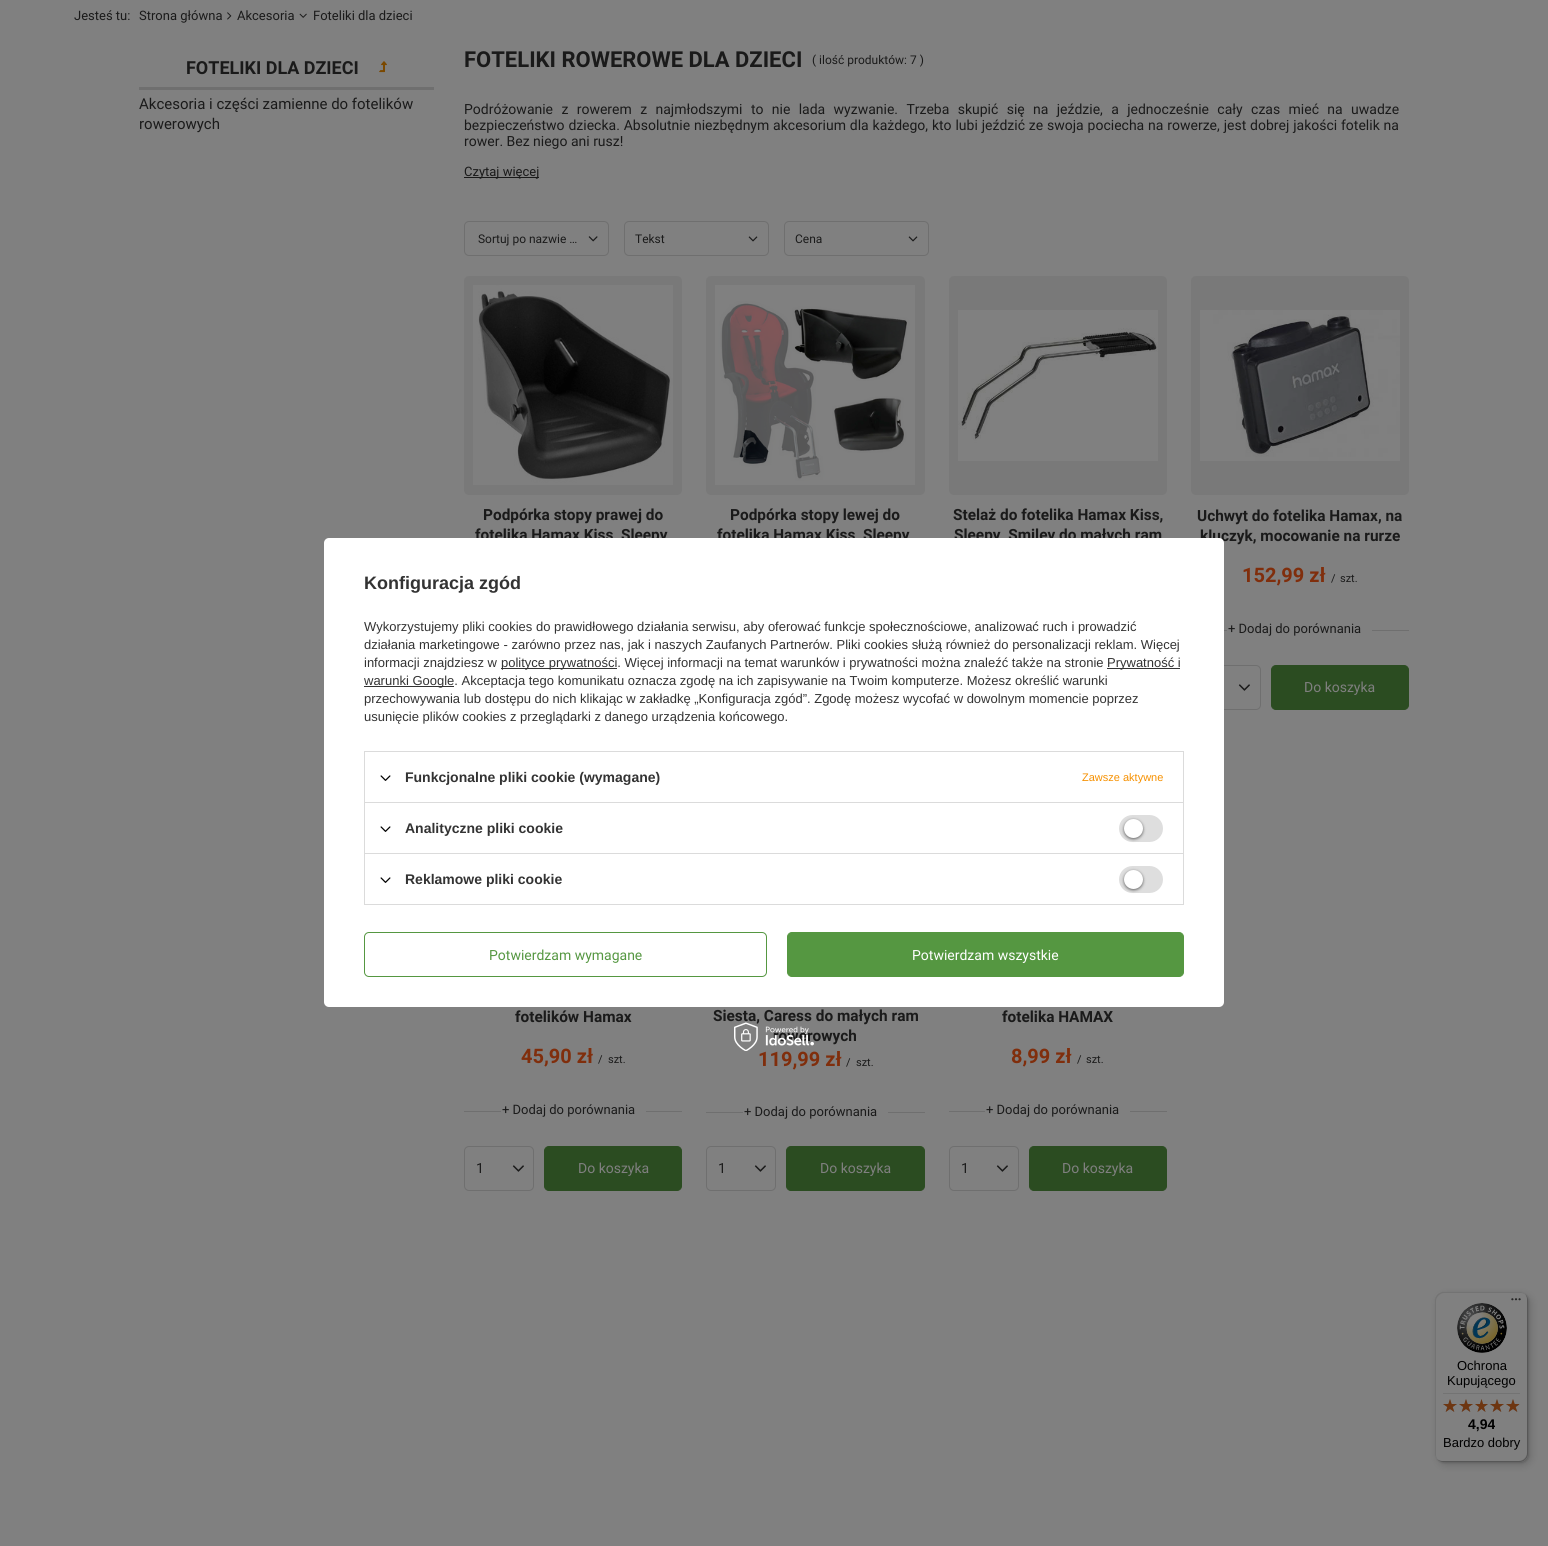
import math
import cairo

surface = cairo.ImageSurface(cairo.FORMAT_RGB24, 1548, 1546)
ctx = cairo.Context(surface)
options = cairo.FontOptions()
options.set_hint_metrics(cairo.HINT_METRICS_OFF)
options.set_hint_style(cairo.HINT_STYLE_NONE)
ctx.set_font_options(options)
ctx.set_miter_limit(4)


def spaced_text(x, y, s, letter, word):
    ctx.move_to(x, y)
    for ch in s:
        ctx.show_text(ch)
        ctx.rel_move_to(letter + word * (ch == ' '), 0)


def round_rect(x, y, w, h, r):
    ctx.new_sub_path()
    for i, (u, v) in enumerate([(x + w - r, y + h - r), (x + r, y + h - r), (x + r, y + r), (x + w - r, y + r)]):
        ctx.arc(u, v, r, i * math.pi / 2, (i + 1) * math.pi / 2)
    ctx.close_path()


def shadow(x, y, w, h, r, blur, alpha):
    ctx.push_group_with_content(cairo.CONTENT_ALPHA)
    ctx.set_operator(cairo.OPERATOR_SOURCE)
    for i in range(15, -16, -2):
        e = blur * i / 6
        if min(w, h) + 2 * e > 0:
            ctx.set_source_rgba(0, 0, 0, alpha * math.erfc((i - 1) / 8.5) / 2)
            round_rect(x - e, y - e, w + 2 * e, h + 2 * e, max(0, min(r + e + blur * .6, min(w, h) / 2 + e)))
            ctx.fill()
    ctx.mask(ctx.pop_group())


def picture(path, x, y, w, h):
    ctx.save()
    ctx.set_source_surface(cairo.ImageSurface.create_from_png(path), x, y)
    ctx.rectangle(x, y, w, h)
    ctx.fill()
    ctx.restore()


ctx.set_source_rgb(0.502, 0.502, 0.502)
ctx.paint()
ctx.select_font_face("Roboto")
ctx.set_font_size(13)
ctx.set_source_rgb(0.102, 0.102, 0.102)
ctx.move_to(74, 20)
ctx.show_text("Jesteś tu:")
ctx.move_to(139, 20)
ctx.show_text("Strona główna")
picture("img1.png", 227, 12, 5, 8)
ctx.move_to(237, 20)
ctx.show_text("Akcesoria")
picture("img2.png", 299, 13, 8, 5)
ctx.move_to(313, 20)
ctx.show_text("Foteliki dla dzieci")
ctx.set_source_rgb(0.435, 0.435, 0.435)
ctx.rectangle(139, 87, 295, 3)
ctx.fill()
ctx.select_font_face("Roboto", cairo.FONT_SLANT_NORMAL, cairo.FONT_WEIGHT_BOLD)
ctx.set_font_size(18)
ctx.set_source_rgb(0.102, 0.102, 0.102)
ctx.move_to(186, 74)
ctx.show_text("FOTELIKI DLA DZIECI")
picture("img3.png", 379, 61, 8, 12)
ctx.select_font_face("Roboto")
ctx.set_font_size(15)
ctx.move_to(139, 109)
ctx.show_text("Akcesoria i części zamienne do fotelików")
ctx.move_to(139, 129)
ctx.show_text("rowerowych")
ctx.select_font_face("Roboto", cairo.FONT_SLANT_NORMAL, cairo.FONT_WEIGHT_BOLD)
ctx.set_font_size(22)
ctx.move_to(464, 67)
ctx.show_text("FOTELIKI ROWEROWE DLA DZIECI")
ctx.select_font_face("Roboto")
ctx.set_font_size(12)
ctx.move_to(812, 64)
ctx.show_text("( ilość produktów: 7 )")
ctx.set_font_size(14)
spaced_text(464, 114, "Podróżowanie z rowerem z najmłodszymi to nie lada wyzwanie. Trzeba skupić się na jeździe, a jednocześnie cały czas mieć na uwadze", 0, 4.9)
spaced_text(464, 130, "bezpieczeństwo dziecka. Absolutnie niezbędnym akcesorium dla każdego, kto lubi jeździć ze swoja pociecha na rowerze, jest dobrej jakości fotelik na", 0, 0.4)
ctx.move_to(464, 146)
ctx.show_text("rower. Bez niego ani rusz!")
ctx.rectangle(464, 177, 75, 1)
ctx.fill()
ctx.set_font_size(13)
ctx.move_to(464, 176)
ctx.show_text("Czytaj więcej")
round_rect(464.5, 221.5, 144, 34, 4.5)
ctx.set_source_rgb(0.435, 0.435, 0.435)
ctx.set_line_width(1)
ctx.stroke()
ctx.set_font_size(12)
ctx.set_source_rgb(0.102, 0.102, 0.102)
ctx.move_to(478, 243)
ctx.show_text("Sortuj po nazwie …")
picture("img4.png", 588, 236, 10, 6)
round_rect(624.5, 221.5, 144, 34, 4.5)
ctx.set_source_rgb(0.435, 0.435, 0.435)
ctx.stroke()
ctx.set_source_rgb(0.102, 0.102, 0.102)
ctx.move_to(635, 243)
ctx.show_text("Tekst")
picture("img5.png", 748, 236, 10, 6)
round_rect(784.5, 221.5, 144, 34, 4.5)
ctx.set_source_rgb(0.435, 0.435, 0.435)
ctx.stroke()
ctx.set_source_rgb(0.102, 0.102, 0.102)
ctx.move_to(795, 243)
ctx.show_text("Cena")
picture("img5.png", 908, 236, 10, 6)
ctx.set_source_rgb(0.475, 0.475, 0.475)
round_rect(464, 276, 218, 219, 5)
ctx.fill()
picture("img6.png", 473, 285, 200, 200)
ctx.select_font_face("Roboto", cairo.FONT_SLANT_NORMAL, cairo.FONT_WEIGHT_BOLD)
ctx.set_font_size(15.4)
ctx.set_source_rgb(0.102, 0.102, 0.102)
ctx.move_to(483, 520)
ctx.show_text("Podpórka stopy prawej do")
ctx.move_to(475, 540)
ctx.show_text("fotelika Hamax Kiss, Sleepy")
ctx.set_source_rgb(0.475, 0.475, 0.475)
round_rect(706, 276, 219, 219, 5)
ctx.fill()
picture("img7.png", 715, 285, 200, 200)
ctx.set_source_rgb(0.102, 0.102, 0.102)
ctx.move_to(730, 520)
ctx.show_text("Podpórka stopy lewej do")
ctx.move_to(717, 540)
ctx.show_text("fotelika Hamax Kiss, Sleepy")
ctx.set_source_rgb(0.475, 0.475, 0.475)
round_rect(949, 276, 218, 219, 5)
ctx.fill()
picture("img8.png", 958, 310, 200, 151)
ctx.set_source_rgb(0.102, 0.102, 0.102)
ctx.move_to(953, 520)
ctx.show_text("Stelaż do fotelika Hamax Kiss,")
ctx.move_to(954, 540)
ctx.show_text("Sleepy, Smiley do małych ram")
ctx.set_source_rgb(0.475, 0.475, 0.475)
round_rect(1191, 276, 218, 219, 5)
ctx.fill()
picture("img9.png", 1200, 310, 200, 151)
ctx.set_source_rgb(0.102, 0.102, 0.102)
ctx.move_to(1197, 521)
ctx.show_text("Uchwyt do fotelika Hamax, na")
ctx.move_to(1200, 541)
ctx.show_text("kluczyk, mocowanie na rurze")
ctx.set_font_size(20)
ctx.set_source_rgb(0.502, 0.18, 0.047)
ctx.move_to(1242, 582)
ctx.show_text("152,99 zł")
ctx.select_font_face("Roboto")
ctx.set_font_size(11)
ctx.set_source_rgb(0.102, 0.102, 0.102)
ctx.move_to(1331, 582)
ctx.show_text("/")
ctx.move_to(1340, 582)
ctx.show_text("szt.")
ctx.set_source_rgb(0.435, 0.435, 0.435)
ctx.rectangle(1224, 630, 185, 1)
ctx.fill()
ctx.set_source_rgb(0.502, 0.502, 0.502)
round_rect(1227, 611, 145, 37, 5)
ctx.fill()
ctx.set_font_size(13)
ctx.set_source_rgb(0.102, 0.102, 0.102)
ctx.move_to(1228, 633)
ctx.show_text("+ Dodaj do porównania")
round_rect(1191.5, 665.5, 69, 44, 4.5)
ctx.set_source_rgb(0.435, 0.435, 0.435)
ctx.stroke()
picture("img10.png", 1238, 684, 12, 7)
ctx.set_source_rgb(0.169, 0.298, 0.129)
round_rect(1271.5, 665.5, 137, 44, 4.5)
ctx.fill_preserve()
ctx.stroke()
ctx.set_font_size(14)
ctx.set_source_rgb(0.502, 0.502, 0.502)
ctx.move_to(1304, 692)
ctx.show_text("Do koszyka")
ctx.select_font_face("Roboto", cairo.FONT_SLANT_NORMAL, cairo.FONT_WEIGHT_BOLD)
ctx.set_font_size(15.4)
ctx.set_source_rgb(0.102, 0.102, 0.102)
ctx.move_to(515, 1022)
ctx.show_text("fotelików Hamax")
ctx.set_font_size(20)
ctx.set_source_rgb(0.502, 0.18, 0.047)
ctx.move_to(521, 1063)
ctx.show_text("45,90 zł")
ctx.select_font_face("Roboto")
ctx.set_font_size(11)
ctx.set_source_rgb(0.102, 0.102, 0.102)
ctx.move_to(598, 1063)
ctx.show_text("/")
ctx.move_to(608, 1063)
ctx.show_text("szt.")
ctx.set_source_rgb(0.435, 0.435, 0.435)
ctx.rectangle(464, 1111, 218, 1)
ctx.fill()
ctx.set_source_rgb(0.502, 0.502, 0.502)
round_rect(501, 1092, 145, 37, 5)
ctx.fill()
ctx.set_font_size(13)
ctx.set_source_rgb(0.102, 0.102, 0.102)
ctx.move_to(502, 1114)
ctx.show_text("+ Dodaj do porównania")
round_rect(464.5, 1146.5, 69, 44, 4.5)
ctx.set_source_rgb(0.435, 0.435, 0.435)
ctx.stroke()
picture("img10.png", 512, 1165, 12, 7)
ctx.set_font_size(14)
ctx.set_source_rgb(0.102, 0.102, 0.102)
ctx.move_to(476, 1173)
ctx.show_text("1")
ctx.set_source_rgb(0.169, 0.298, 0.129)
round_rect(544.5, 1146.5, 137, 44, 4.5)
ctx.fill_preserve()
ctx.stroke()
ctx.set_source_rgb(0.502, 0.502, 0.502)
ctx.move_to(578, 1173)
ctx.show_text("Do koszyka")
ctx.select_font_face("Roboto", cairo.FONT_SLANT_NORMAL, cairo.FONT_WEIGHT_BOLD)
ctx.set_font_size(15.4)
ctx.set_source_rgb(0.102, 0.102, 0.102)
ctx.move_to(713, 1021)
ctx.show_text("Siesta, Caress do małych ram")
ctx.move_to(773, 1041)
ctx.show_text("rowerowych")
ctx.set_font_size(20)
ctx.set_source_rgb(0.502, 0.18, 0.047)
ctx.move_to(758, 1066)
ctx.show_text("119,99 zł")
ctx.select_font_face("Roboto")
ctx.set_font_size(11)
ctx.set_source_rgb(0.102, 0.102, 0.102)
ctx.move_to(846, 1066)
ctx.show_text("/")
ctx.move_to(856, 1066)
ctx.show_text("szt.")
ctx.set_source_rgb(0.435, 0.435, 0.435)
ctx.rectangle(706, 1112, 219, 1)
ctx.fill()
ctx.set_source_rgb(0.502, 0.502, 0.502)
round_rect(743, 1094, 145, 37, 5)
ctx.fill()
ctx.set_font_size(13)
ctx.set_source_rgb(0.102, 0.102, 0.102)
ctx.move_to(744, 1116)
ctx.show_text("+ Dodaj do porównania")
round_rect(706.5, 1146.5, 69, 44, 4.5)
ctx.set_source_rgb(0.435, 0.435, 0.435)
ctx.stroke()
picture("img10.png", 754, 1165, 12, 7)
ctx.set_font_size(14)
ctx.set_source_rgb(0.102, 0.102, 0.102)
ctx.move_to(718, 1173)
ctx.show_text("1")
ctx.set_source_rgb(0.169, 0.298, 0.129)
round_rect(786.5, 1146.5, 138, 44, 4.5)
ctx.fill_preserve()
ctx.stroke()
ctx.set_source_rgb(0.502, 0.502, 0.502)
ctx.move_to(820, 1173)
ctx.show_text("Do koszyka")
ctx.select_font_face("Roboto", cairo.FONT_SLANT_NORMAL, cairo.FONT_WEIGHT_BOLD)
ctx.set_font_size(15.4)
ctx.set_source_rgb(0.102, 0.102, 0.102)
ctx.move_to(1002, 1022)
ctx.show_text("fotelika HAMAX")
ctx.set_font_size(20)
ctx.set_source_rgb(0.502, 0.18, 0.047)
ctx.move_to(1011, 1063)
ctx.show_text("8,99 zł")
ctx.select_font_face("Roboto")
ctx.set_font_size(11)
ctx.set_source_rgb(0.102, 0.102, 0.102)
ctx.move_to(1077, 1063)
ctx.show_text("/")
ctx.move_to(1086, 1063)
ctx.show_text("szt.")
ctx.set_source_rgb(0.435, 0.435, 0.435)
ctx.rectangle(949, 1111, 218, 1)
ctx.fill()
ctx.set_source_rgb(0.502, 0.502, 0.502)
round_rect(985, 1092, 145, 37, 5)
ctx.fill()
ctx.set_font_size(13)
ctx.set_source_rgb(0.102, 0.102, 0.102)
ctx.move_to(986, 1114)
ctx.show_text("+ Dodaj do porównania")
round_rect(949.5, 1146.5, 69, 44, 4.5)
ctx.set_source_rgb(0.435, 0.435, 0.435)
ctx.stroke()
picture("img10.png", 996, 1165, 12, 7)
ctx.set_font_size(14)
ctx.set_source_rgb(0.102, 0.102, 0.102)
ctx.move_to(961, 1173)
ctx.show_text("1")
ctx.set_source_rgb(0.169, 0.298, 0.129)
round_rect(1029.5, 1146.5, 137, 44, 4.5)
ctx.fill_preserve()
ctx.stroke()
ctx.set_source_rgb(0.502, 0.502, 0.502)
ctx.move_to(1062, 1173)
ctx.show_text("Do koszyka")
ctx.set_source_rgb(1, 1, 1)
round_rect(324, 538, 900, 469, 5)
ctx.fill()
ctx.select_font_face("Liberation Sans", cairo.FONT_SLANT_NORMAL, cairo.FONT_WEIGHT_BOLD)
ctx.set_font_size(18)
ctx.set_source_rgb(0.2, 0.2, 0.2)
ctx.move_to(364, 589)
ctx.show_text("Konfiguracja zgód")
ctx.select_font_face("Liberation Sans")
ctx.set_font_size(13)
ctx.move_to(364, 631)
ctx.show_text("Wykorzystujemy pliki cookies do prawidłowego działania serwisu, aby oferować funkcje społecznościowe, analizować ruch i prowadzić")
ctx.move_to(364, 649)
ctx.show_text("działania marketingowe - zarówno przez nas, jak i naszych Zaufanych Partnerów. Pliki cookies służą również do personalizacji reklam. Więcej")
ctx.move_to(364, 667)
ctx.show_text("informacji znajdziesz w")
ctx.rectangle(501, 668, 116, 1)
ctx.fill()
ctx.move_to(501, 667)
ctx.show_text("polityce prywatności. Więcej informacji na temat warunków i prywatności można znaleźć także na stronie")
ctx.rectangle(1107, 668, 73, 1)
ctx.fill()
ctx.move_to(1107, 667)
ctx.show_text("Prywatność i")
ctx.rectangle(364, 686, 90, 1)
ctx.fill()
ctx.move_to(364, 685)
ctx.show_text("warunki Google. Akceptacja tego komunikatu oznacza zgodę na ich zapisywanie na Twoim komputerze. Możesz określić warunki")
ctx.move_to(364, 703)
ctx.show_text("przechowywania lub dostępu do nich klikając w zakładkę „Konfiguracja zgód”. Zgodę możesz wycofać w dowolnym momencie poprzez")
ctx.move_to(364, 721)
ctx.show_text("usunięcie plików cookies z przeglądarki z danego urządzenia końcowego.")
ctx.set_source_rgb(0.859, 0.859, 0.859)
ctx.rectangle(364, 751, 820, 1)
ctx.fill()
ctx.rectangle(1183, 751, 1, 51)
ctx.fill()
ctx.rectangle(364, 751, 1, 51)
ctx.fill()
picture("img11.png", 380, 775, 11, 6)
ctx.select_font_face("Liberation Sans", cairo.FONT_SLANT_NORMAL, cairo.FONT_WEIGHT_BOLD)
ctx.set_font_size(14)
ctx.set_source_rgb(0.2, 0.2, 0.2)
ctx.move_to(405, 782)
ctx.show_text("Funkcjonalne pliki cookie (wymagane)")
ctx.select_font_face("Liberation Sans")
ctx.set_font_size(11)
ctx.set_source_rgb(0.961, 0.565, 0)
ctx.move_to(1082, 781)
ctx.show_text("Zawsze aktywne")
ctx.set_source_rgb(0.859, 0.859, 0.859)
ctx.rectangle(364, 802, 820, 1)
ctx.fill()
ctx.rectangle(1183, 802, 1, 51)
ctx.fill()
ctx.rectangle(364, 802, 1, 51)
ctx.fill()
picture("img11.png", 380, 826, 11, 6)
ctx.select_font_face("Liberation Sans", cairo.FONT_SLANT_NORMAL, cairo.FONT_WEIGHT_BOLD)
ctx.set_font_size(14)
ctx.set_source_rgb(0.2, 0.2, 0.2)
ctx.move_to(405, 833)
ctx.show_text("Analityczne pliki cookie")
ctx.set_source_rgb(0.871, 0.871, 0.871)
round_rect(1119, 815, 44, 27, 13.5)
ctx.fill()
ctx.set_source_rgb(0, 0, 0)
shadow(1124, 820, 19, 19, 9.5, 1.5, 0.56)
ctx.set_source_rgb(1, 1, 1)
ctx.arc(1133.5, 828.5, 9.5, 0, 2 * math.pi)
ctx.fill()
ctx.rectangle(364.5, 853.5, 819, 51)
ctx.set_source_rgb(0.859, 0.859, 0.859)
ctx.stroke()
picture("img11.png", 380, 877, 11, 6)
ctx.set_source_rgb(0.2, 0.2, 0.2)
ctx.move_to(405, 884)
ctx.show_text("Reklamowe pliki cookie")
ctx.set_source_rgb(0.871, 0.871, 0.871)
round_rect(1119, 866, 44, 27, 13.5)
ctx.fill()
ctx.set_source_rgb(0, 0, 0)
shadow(1124, 871, 19, 19, 9.5, 1.5, 0.56)
ctx.set_source_rgb(1, 1, 1)
ctx.arc(1133.5, 879.5, 9.5, 0, 2 * math.pi)
ctx.fill()
round_rect(364.5, 932.5, 402, 44, 4.5)
ctx.set_source_rgb(0.333, 0.592, 0.255)
ctx.stroke()
ctx.select_font_face("Roboto")
ctx.move_to(489, 960)
ctx.show_text("Potwierdzam wymagane")
round_rect(787.5, 932.5, 396, 44, 4.5)
ctx.fill_preserve()
ctx.stroke()
ctx.set_source_rgb(1, 1, 1)
ctx.move_to(912, 960)
ctx.show_text("Potwierdzam wszystkie")
picture("img12.png", 734, 1022, 80, 29)
ctx.set_source_rgb(0, 0, 0)
shadow(1438, 1295, 93, 170, 8, 4, 0.15)
shadow(1436, 1293, 93, 170, 8, 1, 0.15)
ctx.set_source_rgb(0.502, 0.502, 0.502)
round_rect(1435, 1292, 93, 170, 8)
ctx.fill()
ctx.set_source_rgb(0.451, 0.451, 0.451)
ctx.new_path()
ctx.move_to(1444, 1293)
ctx.line_to(1521, 1293)
ctx.curve_to(1523, 1293, 1525, 1294, 1527, 1296)
ctx.curve_to(1525, 1294, 1523, 1292, 1520, 1292)
ctx.line_to(1443, 1292)
ctx.curve_to(1439, 1292, 1435, 1296, 1435, 1300)
ctx.line_to(1435, 1454)
ctx.curve_to(1435, 1457, 1437, 1459, 1439, 1461)
ctx.curve_to(1437, 1459, 1436, 1457, 1436, 1455)
ctx.line_to(1436, 1301)
ctx.curve_to(1436, 1297, 1440, 1293, 1444, 1293)
ctx.close_path()
ctx.fill()
ctx.set_source_rgb(0.4, 0.4, 0.4)
ctx.new_path()
ctx.move_to(1436, 1458)
ctx.curve_to(1438, 1460, 1440, 1462, 1443, 1462)
ctx.line_to(1520, 1462)
ctx.curve_to(1524, 1462, 1528, 1458, 1528, 1454)
ctx.line_to(1528, 1300)
ctx.curve_to(1528, 1297, 1526, 1295, 1524, 1293)
ctx.curve_to(1526, 1295, 1527, 1297, 1527, 1299)
ctx.line_to(1527, 1453)
ctx.curve_to(1527, 1457, 1523, 1461, 1519, 1461)
ctx.line_to(1442, 1461)
ctx.curve_to(1440, 1461, 1438, 1460, 1436, 1458)
ctx.close_path()
ctx.fill()
ctx.set_source_rgba(0.098, 0.098, 0.098, 0.2)
ctx.new_path()
ctx.move_to(1437, 1459)
ctx.curve_to(1438, 1461, 1441, 1462, 1443, 1462)
ctx.line_to(1520, 1462)
ctx.curve_to(1524, 1462, 1528, 1458, 1528, 1454)
ctx.line_to(1528, 1300)
ctx.curve_to(1528, 1298, 1527, 1295, 1525, 1294)
ctx.curve_to(1526, 1295, 1527, 1297, 1527, 1299)
ctx.line_to(1527, 1453)
ctx.curve_to(1527, 1458, 1524, 1461, 1519, 1461)
ctx.line_to(1442, 1461)
ctx.curve_to(1440, 1461, 1438, 1460, 1437, 1459)
ctx.close_path()
ctx.fill()
picture("img13.png", 1511, 1298, 10, 3)
picture("img14.png", 1457, 1303, 50, 50)
ctx.select_font_face("Liberation Sans")
ctx.set_font_size(13)
ctx.set_source_rgb(0, 0, 0)
ctx.move_to(1457, 1370)
ctx.show_text("Ochrona")
ctx.move_to(1447, 1385)
ctx.show_text("Kupującego")
ctx.set_source_rgb(0.451, 0.451, 0.451)
ctx.rectangle(1443, 1393, 77, 1)
ctx.fill()
picture("img15.png", 1443, 1399, 14, 13)
picture("img15.png", 1459, 1399, 14, 13)
picture("img16.png", 1475, 1399, 13, 13)
picture("img15.png", 1490, 1399, 14, 13)
picture("img15.png", 1506, 1399, 14, 13)
picture("img17.png", 1443, 1399, 14, 13)
picture("img17.png", 1459, 1399, 14, 13)
picture("img18.png", 1475, 1399, 13, 13)
picture("img17.png", 1490, 1399, 14, 13)
picture("img19.png", 1506, 1399, 13, 13)
ctx.select_font_face("Liberation Sans", cairo.FONT_SLANT_NORMAL, cairo.FONT_WEIGHT_BOLD)
ctx.set_font_size(14)
ctx.set_source_rgb(0, 0, 0)
ctx.move_to(1468, 1429)
ctx.show_text("4,94")
ctx.select_font_face("Liberation Sans")
ctx.set_font_size(13)
ctx.move_to(1443, 1447)
ctx.show_text("Bardzo dobry")
surface.write_to_png("page.png")
